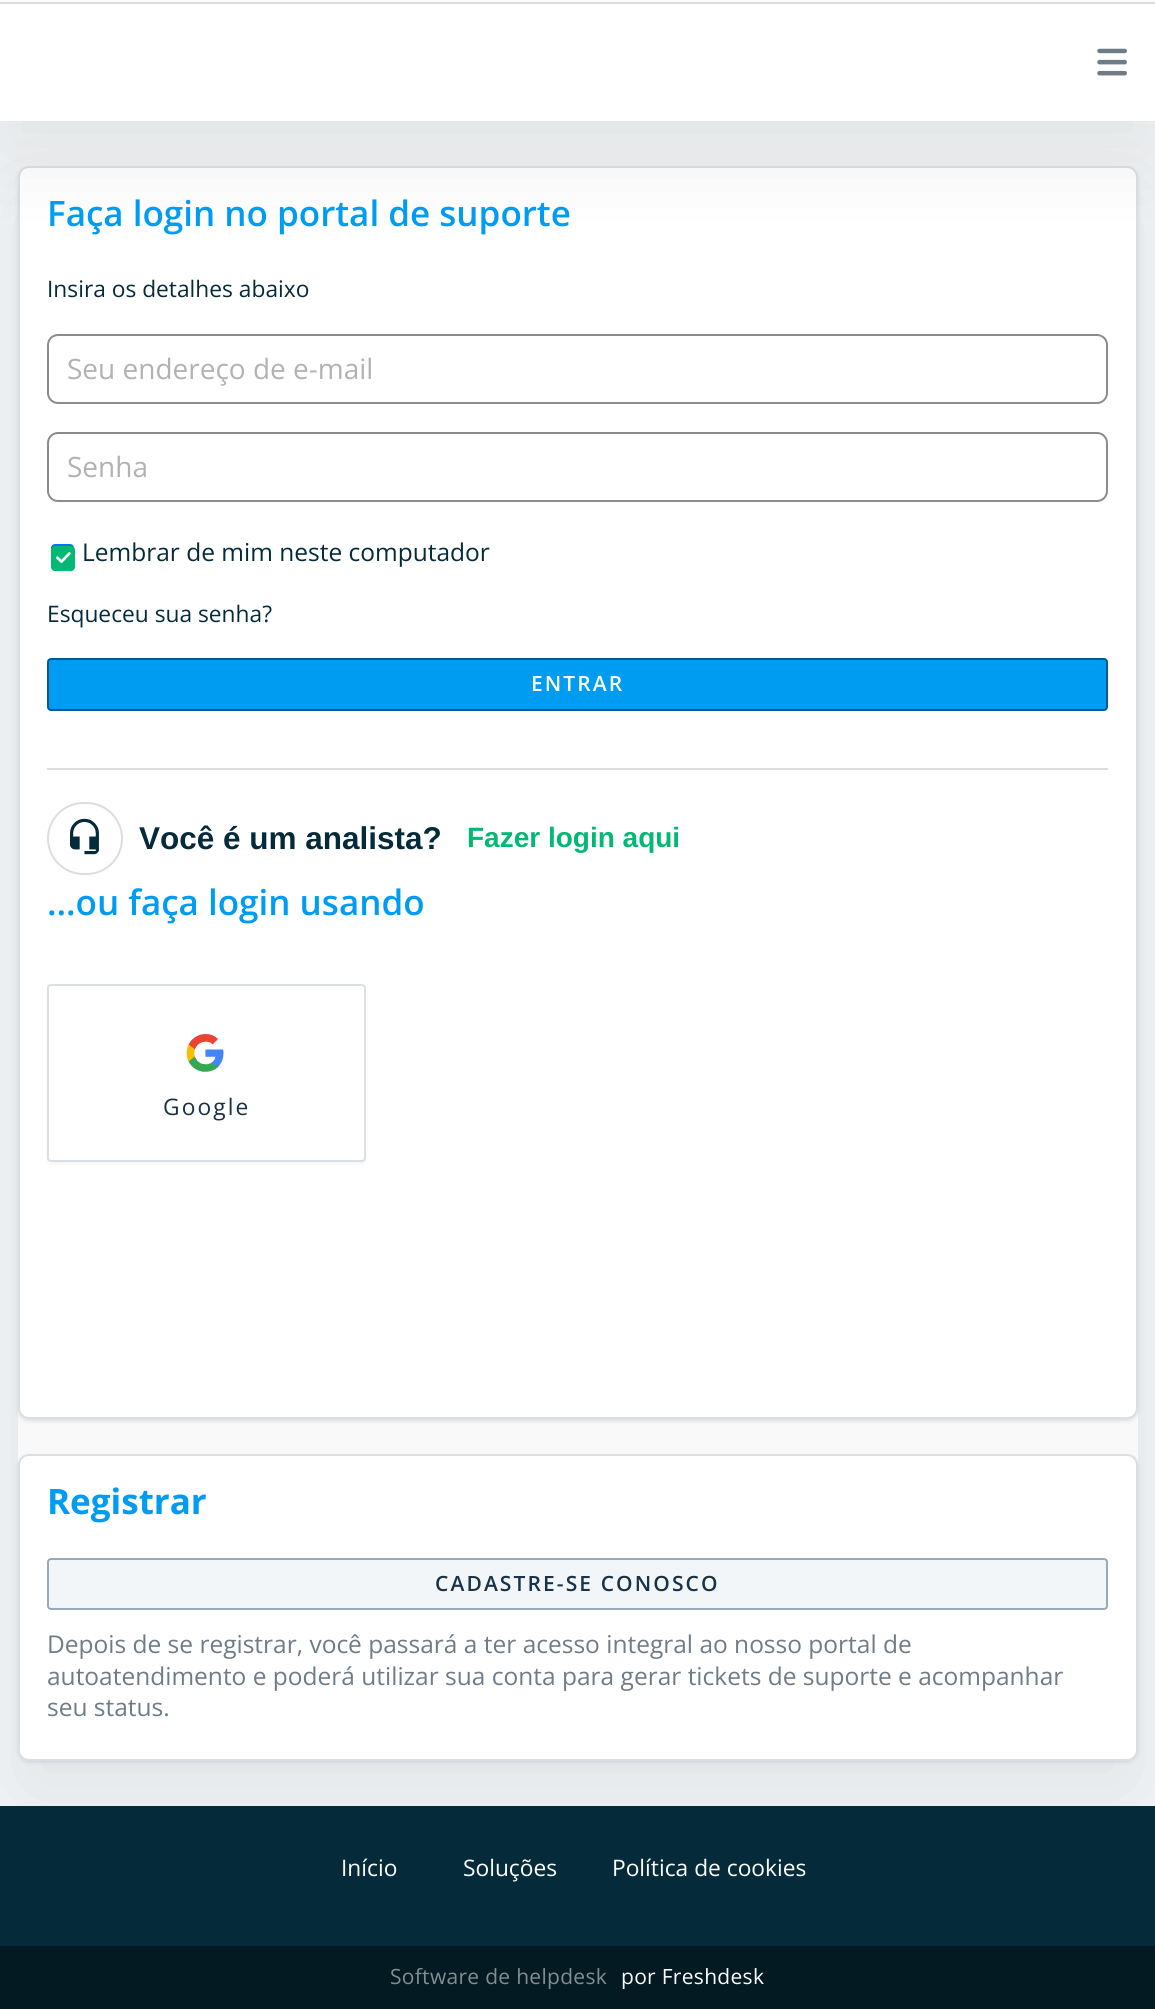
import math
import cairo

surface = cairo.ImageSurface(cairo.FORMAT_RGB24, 1155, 2009)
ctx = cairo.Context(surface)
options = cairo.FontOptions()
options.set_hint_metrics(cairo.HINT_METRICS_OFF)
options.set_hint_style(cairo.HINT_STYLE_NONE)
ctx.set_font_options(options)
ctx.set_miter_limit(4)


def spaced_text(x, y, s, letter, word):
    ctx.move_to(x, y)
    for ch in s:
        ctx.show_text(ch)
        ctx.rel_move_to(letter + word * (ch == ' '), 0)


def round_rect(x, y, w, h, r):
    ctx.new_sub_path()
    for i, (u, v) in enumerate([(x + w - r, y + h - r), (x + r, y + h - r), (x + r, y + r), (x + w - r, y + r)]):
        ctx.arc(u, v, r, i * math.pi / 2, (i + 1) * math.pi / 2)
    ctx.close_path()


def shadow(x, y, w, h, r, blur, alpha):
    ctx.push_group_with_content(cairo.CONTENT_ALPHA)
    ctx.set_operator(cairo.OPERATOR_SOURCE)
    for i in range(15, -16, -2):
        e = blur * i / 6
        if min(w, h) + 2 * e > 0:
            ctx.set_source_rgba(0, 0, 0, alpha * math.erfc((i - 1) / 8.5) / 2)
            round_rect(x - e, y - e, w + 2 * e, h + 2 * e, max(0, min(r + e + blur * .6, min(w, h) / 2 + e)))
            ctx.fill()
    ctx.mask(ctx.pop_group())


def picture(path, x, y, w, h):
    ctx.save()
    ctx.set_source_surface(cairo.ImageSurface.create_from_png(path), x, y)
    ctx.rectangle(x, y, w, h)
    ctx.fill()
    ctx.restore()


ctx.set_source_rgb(0.953, 0.961, 0.969)
ctx.paint()
ctx.set_source_rgb(1, 1, 1)
ctx.rectangle(0, 0, 1155, 2)
ctx.fill()
ctx.set_source_rgb(0.855, 0.875, 0.89)
ctx.rectangle(0, 2, 1155, 2)
ctx.fill()
ctx.set_source_rgb(0, 0, 0)
shadow(18, 201, 1120, 1595, 11, 44, 0.08)
ctx.set_source_rgb(0.973, 0.976, 0.98)
round_rect(18, 166, 1120, 1595, 11)
ctx.fill()
ctx.set_source_rgb(0.247, 0.247, 0.267)
shadow(18, 168, 1120, 1253, 11, 2, 0.15)
ctx.set_source_rgb(1, 1, 1)
round_rect(19, 167, 1118, 1251, 10)
ctx.fill_preserve()
ctx.set_source_rgb(0.855, 0.875, 0.89)
ctx.stroke()
ctx.set_source_rgb(0, 0, 0)
shadow(0, 39, 1155, 117, 0, 44, 0.08)
ctx.set_source_rgb(1, 1, 1)
ctx.rectangle(0, 4, 1155, 117)
ctx.fill()
picture("img1.png", 1097, 48, 30, 28)
ctx.select_font_face("Open Sans SemiBold")
ctx.set_font_size(35)
ctx.set_source_rgb(0, 0.612, 0.949)
ctx.move_to(47, 226)
ctx.show_text("Faça login no portal de suporte")
ctx.select_font_face("Open Sans")
ctx.set_font_size(22.75)
ctx.set_source_rgb(0.02, 0.169, 0.231)
ctx.move_to(47, 297)
ctx.show_text("Insira os detalhes abaixo")
round_rect(48, 335, 1059, 68, 10)
ctx.set_source_rgb(0.549, 0.549, 0.549)
ctx.stroke()
ctx.set_font_size(28)
ctx.set_source_rgb(0.698, 0.698, 0.698)
ctx.move_to(67, 379)
ctx.show_text("Seu endereço de e-mail")
round_rect(48, 433, 1059, 68, 10)
ctx.set_source_rgb(0.549, 0.549, 0.549)
ctx.stroke()
ctx.set_source_rgb(0.698, 0.698, 0.698)
ctx.move_to(67, 477)
ctx.show_text("Senha")
ctx.set_source_rgb(0, 0.459, 1)
round_rect(51, 544, 23, 23, 4)
ctx.fill()
ctx.set_source_rgb(0.008, 0.722, 0.459)
round_rect(52, 547, 22, 23, 3)
ctx.fill_preserve()
ctx.stroke()
picture("img2.png", 56, 552, 15, 11)
ctx.set_font_size(24.5)
ctx.set_source_rgb(0.02, 0.169, 0.231)
ctx.move_to(82, 561)
ctx.show_text("Lembrar de mim neste computador")
ctx.set_font_size(22.75)
ctx.move_to(47, 622)
ctx.show_text("Esqueceu sua senha?")
ctx.set_source_rgb(0, 0.612, 0.949)
round_rect(48, 659, 1059, 51, 3)
ctx.fill_preserve()
ctx.set_source_rgb(0, 0.353, 0.549)
ctx.stroke()
ctx.select_font_face("Open Sans SemiBold")
ctx.set_font_size(21)
ctx.set_source_rgb(1, 1, 1)
spaced_text(531, 691, "ENTRAR", 2.1, 0)
ctx.set_source_rgb(0.867, 0.867, 0.867)
ctx.rectangle(47, 768, 1061, 2)
ctx.fill()
round_rect(48, 803, 74, 71, 35.5)
ctx.stroke()
picture("img3.png", 70, 818, 29, 37)
ctx.select_font_face("Liberation Sans", cairo.FONT_SLANT_NORMAL, cairo.FONT_WEIGHT_BOLD)
ctx.set_font_size(31.5)
ctx.set_source_rgb(0.02, 0.169, 0.231)
ctx.move_to(139, 849)
ctx.show_text("Você é um analista?")
ctx.set_font_size(28)
ctx.set_source_rgb(0.008, 0.722, 0.459)
ctx.move_to(467, 847)
ctx.show_text("Fazer login aqui")
ctx.select_font_face("Open Sans SemiBold")
ctx.set_font_size(35)
ctx.set_source_rgb(0, 0.612, 0.949)
ctx.move_to(47, 915)
ctx.show_text("…ou faça login usando")
ctx.set_source_rgb(0, 0, 0)
shadow(47, 985, 319, 179, 4, 2, 0.04)
ctx.set_source_rgb(1, 1, 1)
round_rect(48, 985, 317, 176, 3)
ctx.fill_preserve()
ctx.set_source_rgb(0.855, 0.875, 0.89)
ctx.stroke()
picture("img4.png", 186, 1034, 38, 38)
ctx.select_font_face("Open Sans")
ctx.set_font_size(22.75)
ctx.set_source_rgb(0.094, 0.196, 0.278)
spaced_text(163, 1115, "Google", 2.1, 0)
ctx.set_source_rgb(0.247, 0.247, 0.267)
shadow(18, 1456, 1120, 306, 11, 2, 0.15)
ctx.set_source_rgb(1, 1, 1)
round_rect(19, 1455, 1118, 305, 10)
ctx.fill_preserve()
ctx.set_source_rgb(0.855, 0.875, 0.89)
ctx.stroke()
ctx.select_font_face("Open Sans", cairo.FONT_SLANT_NORMAL, cairo.FONT_WEIGHT_BOLD)
ctx.set_font_size(35)
ctx.set_source_rgb(0, 0.612, 0.949)
ctx.move_to(47, 1514)
ctx.show_text("Registrar")
ctx.set_source_rgb(0.953, 0.961, 0.969)
round_rect(48, 1559, 1059, 50, 3)
ctx.fill_preserve()
ctx.set_source_rgb(0.592, 0.663, 0.729)
ctx.stroke()
ctx.select_font_face("Open Sans SemiBold")
ctx.set_font_size(21)
ctx.set_source_rgb(0.094, 0.196, 0.278)
spaced_text(435, 1591, "CADASTRE-SE CONOSCO", 2.1, 0)
ctx.select_font_face("Open Sans")
ctx.set_font_size(24.5)
ctx.set_source_rgb(0.435, 0.486, 0.529)
ctx.move_to(47, 1653)
ctx.show_text("Depois de se registrar, você passará a ter acesso integral ao nosso portal de")
ctx.move_to(47, 1685)
ctx.show_text("autoatendimento e poderá utilizar sua conta para gerar tickets de suporte e acompanhar")
ctx.move_to(47, 1716)
ctx.show_text("seu status.")
ctx.set_source_rgb(0.02, 0.169, 0.231)
ctx.rectangle(0, 1806, 1155, 140)
ctx.fill()
ctx.set_font_size(22.75)
ctx.set_source_rgb(1, 1, 1)
ctx.move_to(341, 1876)
ctx.show_text("Início")
ctx.move_to(463, 1876)
ctx.show_text("Soluções")
ctx.move_to(612, 1876)
ctx.show_text("Política de cookies")
ctx.set_source_rgb(0.012, 0.102, 0.137)
ctx.rectangle(0, 1946, 1155, 63)
ctx.fill()
ctx.set_font_size(21)
ctx.set_source_rgb(0.506, 0.553, 0.569)
spaced_text(390, 1984, "Software de helpdesk", 0.3, 0)
ctx.set_source_rgb(1, 1, 1)
spaced_text(621, 1984, "por Freshdesk", 0.3, 0)
surface.write_to_png("page.png")
